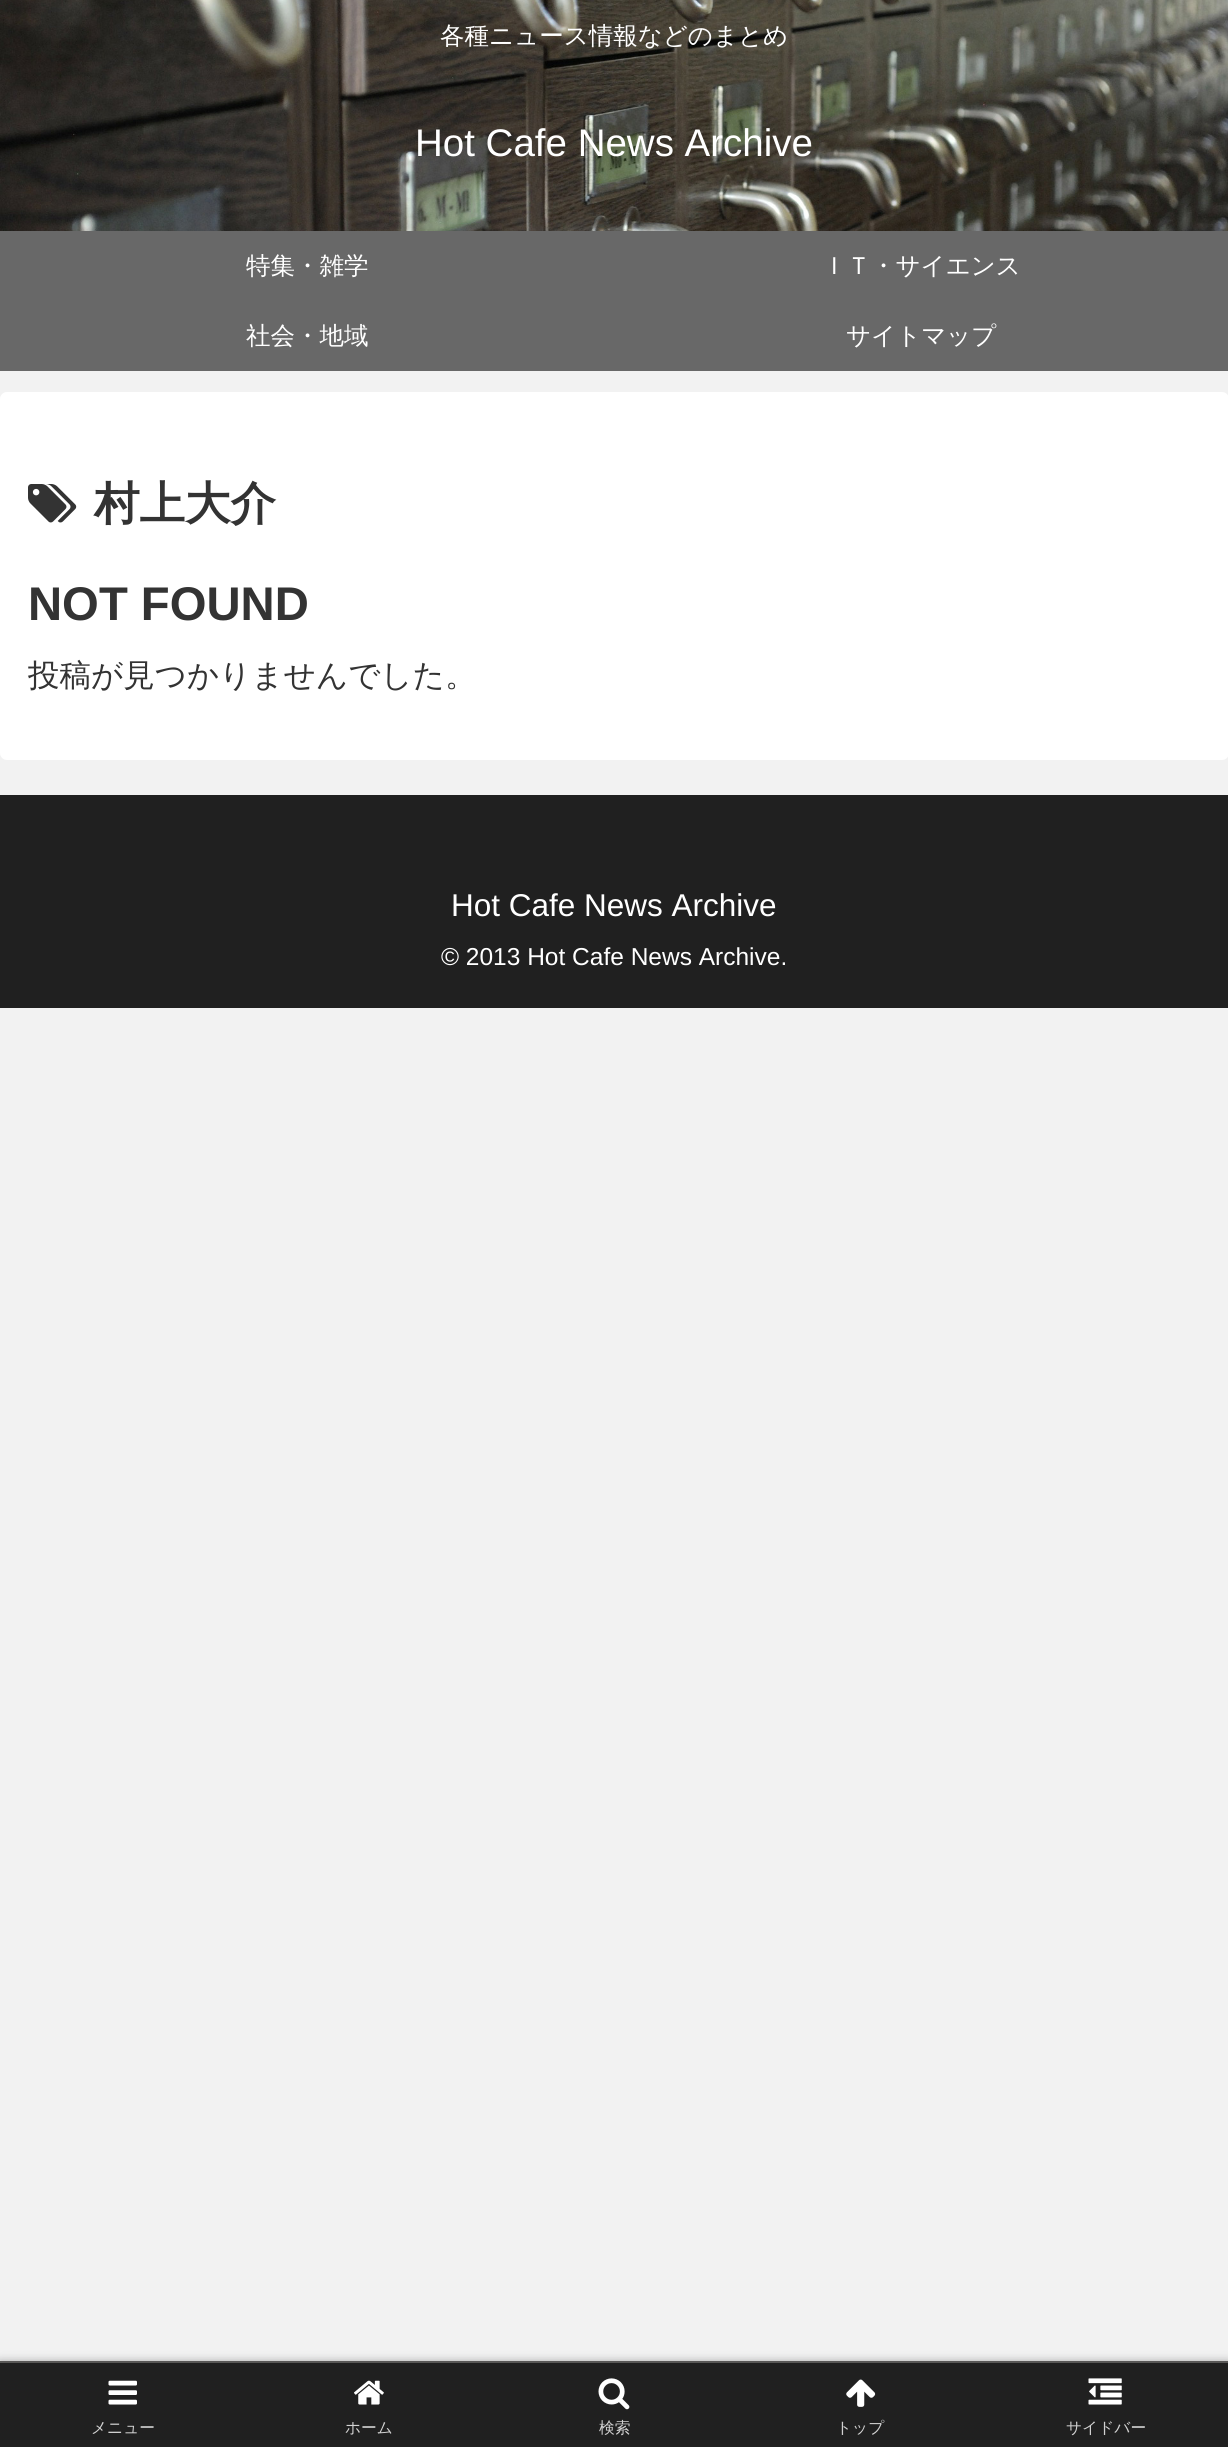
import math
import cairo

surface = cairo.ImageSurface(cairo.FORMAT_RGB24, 1228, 2447)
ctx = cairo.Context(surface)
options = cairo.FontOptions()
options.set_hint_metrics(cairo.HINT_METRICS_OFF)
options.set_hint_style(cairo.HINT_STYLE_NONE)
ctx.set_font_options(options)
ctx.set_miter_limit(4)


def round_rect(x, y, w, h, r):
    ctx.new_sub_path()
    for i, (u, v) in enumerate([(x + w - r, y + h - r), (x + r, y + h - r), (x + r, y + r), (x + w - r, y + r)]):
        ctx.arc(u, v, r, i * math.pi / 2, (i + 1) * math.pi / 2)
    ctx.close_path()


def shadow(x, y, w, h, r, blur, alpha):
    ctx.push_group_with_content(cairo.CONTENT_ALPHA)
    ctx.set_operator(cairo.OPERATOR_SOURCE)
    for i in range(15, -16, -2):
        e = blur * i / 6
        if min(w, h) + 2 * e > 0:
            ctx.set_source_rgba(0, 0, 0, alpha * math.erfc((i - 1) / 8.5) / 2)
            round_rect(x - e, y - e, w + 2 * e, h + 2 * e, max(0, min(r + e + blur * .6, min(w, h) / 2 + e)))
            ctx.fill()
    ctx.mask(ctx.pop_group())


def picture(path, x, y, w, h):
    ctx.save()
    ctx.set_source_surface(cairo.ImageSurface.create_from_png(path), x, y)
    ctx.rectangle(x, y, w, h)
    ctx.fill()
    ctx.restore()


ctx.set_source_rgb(0.949, 0.949, 0.949)
ctx.paint()
ctx.set_source_rgb(0.408, 0.408, 0.408)
ctx.rectangle(0, 231, 1228, 140)
ctx.fill()
picture("img1.png", 0, 0, 1228, 231)
ctx.select_font_face("WenQuanYi Zen Hei Medium")
ctx.set_font_size(24.5)
ctx.set_source_rgb(1, 1, 1)
ctx.move_to(440, 44)
ctx.show_text("各種ニュース情報などのまとめ")
ctx.select_font_face("Liberation Sans")
ctx.set_font_size(38.5)
ctx.move_to(415, 156)
ctx.show_text("Hot Cafe News Archive")
ctx.select_font_face("WenQuanYi Zen Hei Medium")
ctx.set_font_size(24.5)
ctx.move_to(246, 274)
ctx.show_text("特集・雑学")
ctx.move_to(822, 274)
ctx.show_text("ＩＴ・サイエンス")
ctx.move_to(246, 344)
ctx.show_text("社会・地域")
ctx.move_to(846, 344)
ctx.show_text("サイトマップ")
round_rect(0, 392, 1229, 368, 7)
ctx.fill()
picture("img2.png", 28, 484, 49, 39)
ctx.select_font_face("WenQuanYi Zen Hei", cairo.FONT_SLANT_NORMAL, cairo.FONT_WEIGHT_BOLD)
ctx.set_font_size(45.5)
ctx.set_source_rgb(0.2, 0.2, 0.2)
ctx.move_to(94, 519)
ctx.show_text("村上大介")
ctx.select_font_face("Liberation Sans", cairo.FONT_SLANT_NORMAL, cairo.FONT_WEIGHT_BOLD)
ctx.set_font_size(47.25)
ctx.move_to(28, 620)
ctx.show_text("NOT FOUND")
ctx.select_font_face("WenQuanYi Zen Hei Medium")
ctx.set_font_size(31.5)
ctx.move_to(28, 686)
ctx.show_text("投稿が見つかりませんでした。")
ctx.set_source_rgb(0.125, 0.125, 0.125)
ctx.rectangle(0, 795, 1228, 213)
ctx.fill()
ctx.select_font_face("Liberation Sans")
ctx.set_source_rgb(1, 1, 1)
ctx.move_to(451, 916)
ctx.show_text("Hot Cafe News Archive")
ctx.set_font_size(24.5)
ctx.move_to(441, 965)
ctx.show_text("© 2013 Hot Cafe News Archive.")
ctx.set_source_rgb(0.663, 0.663, 0.663)
shadow(0, 2361, 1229, 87, 0, 4.5, 1)
ctx.set_source_rgb(0.125, 0.125, 0.125)
ctx.rectangle(0, 2363, 1228, 84)
ctx.fill()
ctx.set_source_rgb(0.349, 0.345, 0.341)
ctx.rectangle(0, 2361, 1228, 2)
ctx.fill()
picture("img3.png", 108, 2380, 29, 25)
ctx.select_font_face("WenQuanYi Zen Hei Medium")
ctx.set_font_size(15.75)
ctx.set_source_rgb(0.824, 0.824, 0.824)
ctx.move_to(91, 2433)
ctx.show_text("メニュー")
picture("img4.png", 354, 2380, 30, 25)
ctx.move_to(345, 2433)
ctx.show_text("ホーム")
picture("img5.png", 598, 2378, 32, 32)
ctx.move_to(599, 2433)
ctx.show_text("検索")
picture("img6.png", 846, 2379, 30, 28)
ctx.move_to(836, 2433)
ctx.show_text("トップ")
picture("img7.png", 1088, 2378, 34, 27)
ctx.move_to(1066, 2433)
ctx.show_text("サイドバー")
surface.write_to_png("page.png")
